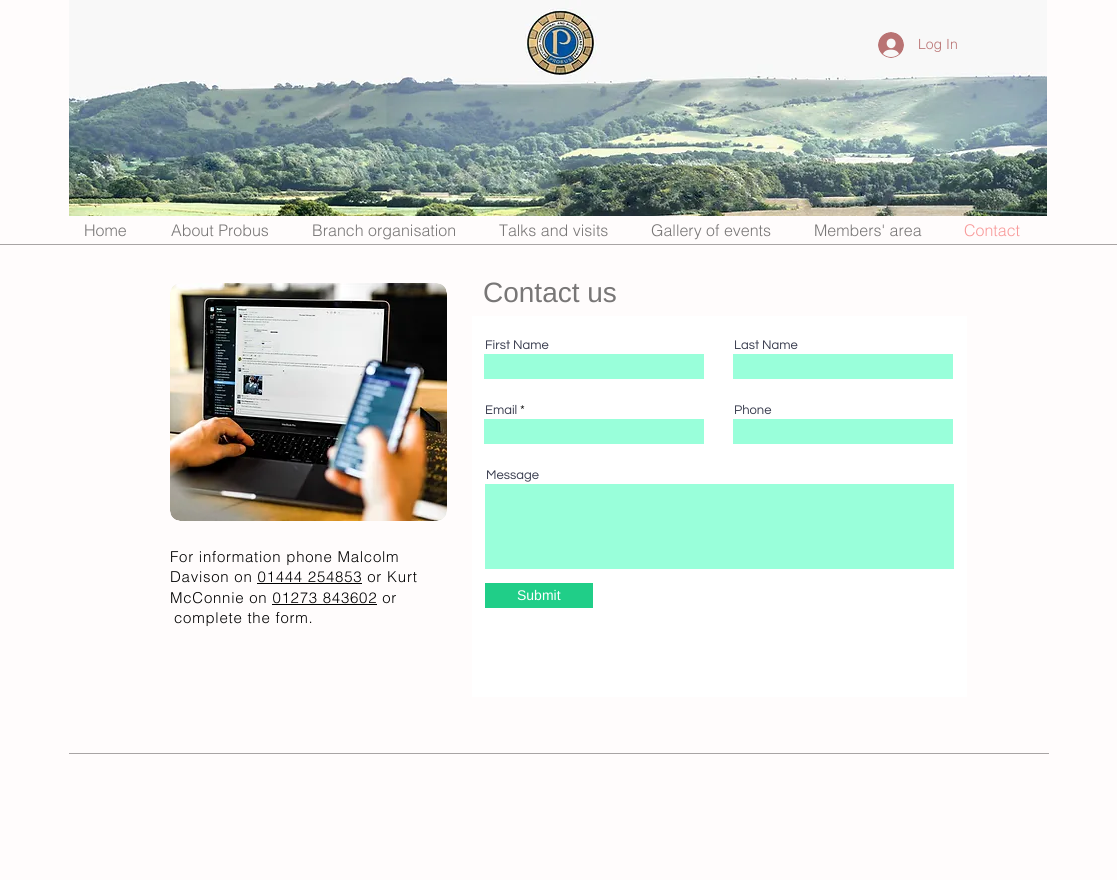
import math
import cairo

surface = cairo.ImageSurface(cairo.FORMAT_RGB24, 1117, 880)
ctx = cairo.Context(surface)
options = cairo.FontOptions()
options.set_hint_metrics(cairo.HINT_METRICS_OFF)
options.set_hint_style(cairo.HINT_STYLE_NONE)
ctx.set_font_options(options)
ctx.set_miter_limit(4)


def spaced_text(x, y, s, letter, word):
    ctx.move_to(x, y)
    for ch in s:
        ctx.show_text(ch)
        ctx.rel_move_to(letter + word * (ch == ' '), 0)


def picture(path, x, y, w, h):
    ctx.save()
    ctx.set_source_surface(cairo.ImageSurface.create_from_png(path), x, y)
    ctx.rectangle(x, y, w, h)
    ctx.fill()
    ctx.restore()


ctx.set_source_rgb(1, 0.988, 0.988)
ctx.paint()
picture("img1.png", 69, 0, 978, 216)
picture("img2.png", 878, 32, 26, 26)
ctx.select_font_face("helvetica Light")
ctx.set_font_size(14)
ctx.set_source_rgb(0.725, 0.451, 0.451)
ctx.move_to(918, 49)
ctx.show_text("Log In")
ctx.set_font_size(16)
ctx.set_source_rgb(0.471, 0.463, 0.463)
ctx.move_to(84, 236)
ctx.show_text("Home")
ctx.move_to(171, 236)
ctx.show_text("About Probus")
ctx.move_to(312, 236)
ctx.show_text("Branch organisation")
ctx.move_to(499, 236)
ctx.show_text("Talks and visits")
ctx.move_to(651, 236)
ctx.show_text("Gallery of events")
ctx.move_to(814, 236)
ctx.show_text("Members' area")
ctx.set_source_rgb(0.969, 0.6, 0.6)
ctx.move_to(964, 236)
ctx.show_text("Contact")
ctx.set_source_rgb(0.659, 0.643, 0.643)
ctx.rectangle(0, 244, 1117, 1)
ctx.fill()
picture("img3.png", 170, 283, 277, 238)
ctx.select_font_face("Liberation Sans")
ctx.set_font_size(28)
ctx.set_source_rgb(0.471, 0.463, 0.463)
ctx.move_to(483, 302)
ctx.show_text("Contact us")
ctx.select_font_face("helvetica Light")
ctx.set_font_size(15)
ctx.set_source_rgb(0, 0, 0)
spaced_text(170, 562, "For information phone Malcolm", 0.75, 0)
spaced_text(170, 582, "Davison on 01444 254853 or Kurt", 0.75, 0)
ctx.rectangle(257, 583, 105, 1)
ctx.fill()
spaced_text(170, 603, "McConnie on 01273 843602 or", 0.75, 0)
ctx.rectangle(272, 604, 105, 1)
ctx.fill()
spaced_text(174, 623, "complete the form.", 0.75, 0)
ctx.set_source_rgb(1, 1, 1)
ctx.rectangle(472, 316, 495, 381)
ctx.fill()
ctx.select_font_face("Questrial")
ctx.set_font_size(13)
ctx.set_source_rgb(0.216, 0.231, 0.302)
ctx.move_to(485, 349)
ctx.show_text("First Name")
ctx.set_source_rgb(0.6, 1, 0.855)
ctx.rectangle(484, 354, 220, 25)
ctx.fill()
ctx.set_source_rgb(0.216, 0.231, 0.302)
ctx.move_to(734, 349)
ctx.show_text("Last Name")
ctx.set_source_rgb(0.6, 1, 0.855)
ctx.rectangle(733, 354, 220, 25)
ctx.fill()
ctx.set_source_rgb(0.216, 0.231, 0.302)
ctx.move_to(485, 414)
ctx.show_text("Email")
ctx.set_source_rgb(0, 0, 0)
ctx.move_to(520, 414)
ctx.show_text("*")
ctx.set_source_rgb(0.6, 1, 0.855)
ctx.rectangle(484, 419, 220, 25)
ctx.fill()
ctx.set_source_rgb(0.216, 0.231, 0.302)
ctx.move_to(734, 414)
ctx.show_text("Phone")
ctx.set_source_rgb(0.6, 1, 0.855)
ctx.rectangle(733, 419, 220, 25)
ctx.fill()
ctx.set_source_rgb(0.216, 0.231, 0.302)
ctx.move_to(486, 479)
ctx.show_text("Message")
ctx.set_source_rgb(0.6, 1, 0.855)
ctx.rectangle(485, 484, 469, 85)
ctx.fill()
ctx.set_source_rgb(0.125, 0.808, 0.533)
ctx.rectangle(485, 583, 108, 25)
ctx.fill()
ctx.select_font_face("Liberation Sans")
ctx.set_font_size(14)
ctx.set_source_rgb(1, 1, 1)
ctx.move_to(517, 600)
ctx.show_text("Submit")
ctx.set_source_rgb(0.659, 0.643, 0.643)
ctx.rectangle(69, 753, 980, 1)
ctx.fill()
surface.write_to_png("page.png")
